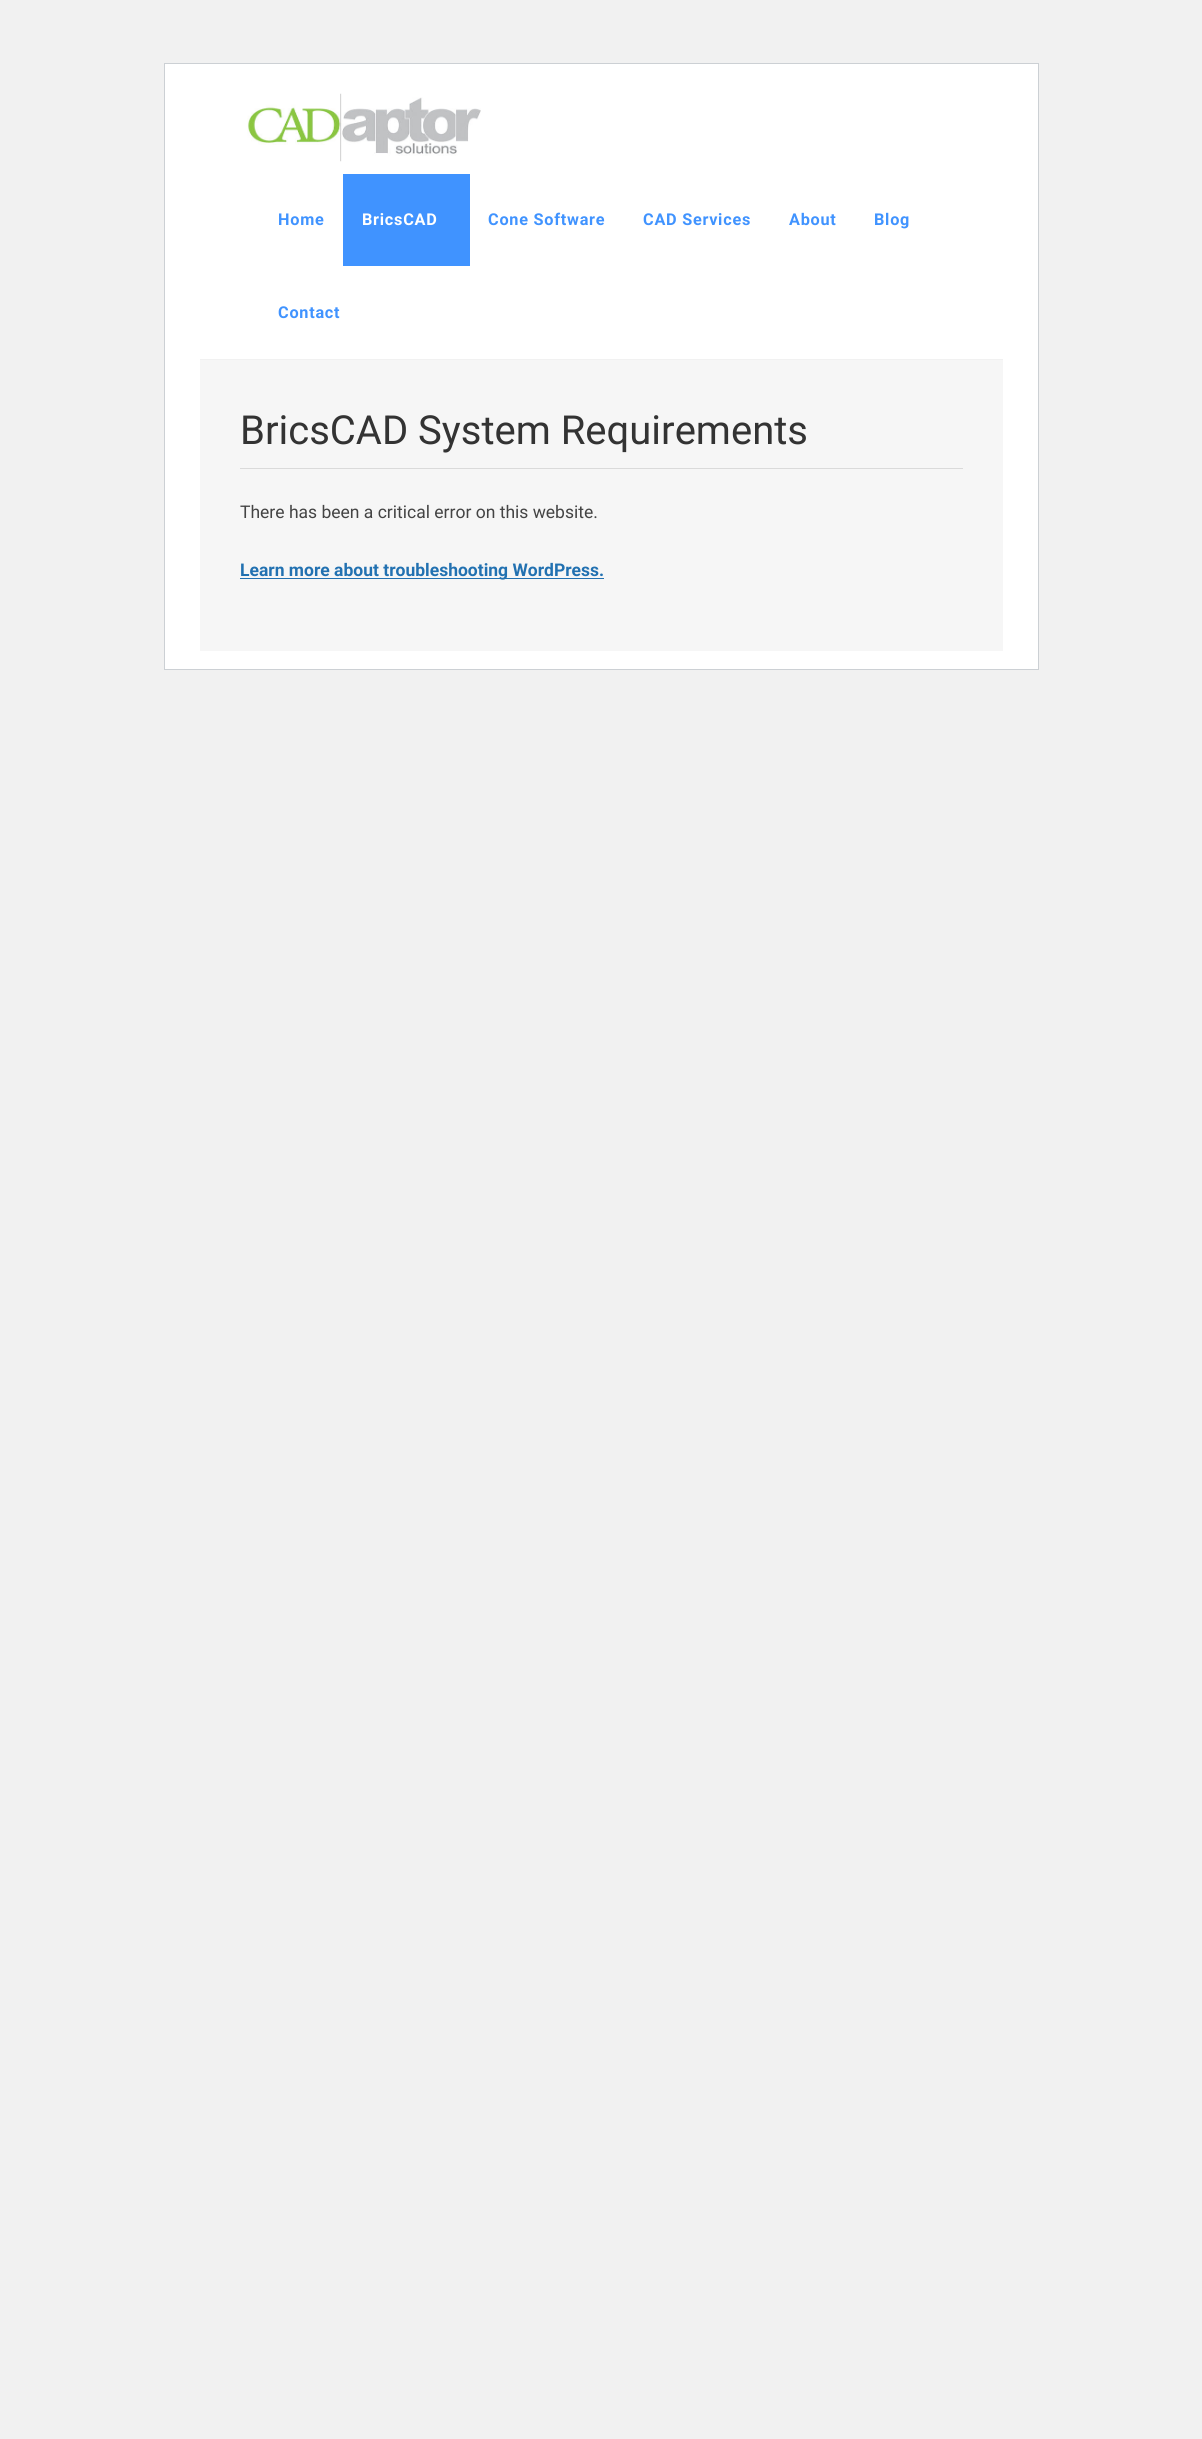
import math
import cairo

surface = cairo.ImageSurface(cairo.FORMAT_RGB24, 1202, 2439)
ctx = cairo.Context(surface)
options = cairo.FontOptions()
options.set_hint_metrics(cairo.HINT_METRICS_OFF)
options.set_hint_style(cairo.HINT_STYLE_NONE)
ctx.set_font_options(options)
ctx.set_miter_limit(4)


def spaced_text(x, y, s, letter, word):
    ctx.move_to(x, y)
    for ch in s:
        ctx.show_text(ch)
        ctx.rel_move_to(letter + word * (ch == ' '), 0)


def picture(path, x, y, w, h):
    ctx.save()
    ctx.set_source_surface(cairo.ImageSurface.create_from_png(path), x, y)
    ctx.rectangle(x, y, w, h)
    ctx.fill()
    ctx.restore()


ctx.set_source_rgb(0.945, 0.945, 0.945)
ctx.paint()
ctx.set_source_rgb(1, 1, 1)
ctx.rectangle(164.5, 63.5, 874, 606)
ctx.fill_preserve()
ctx.set_source_rgb(0.8, 0.816, 0.831)
ctx.set_line_width(1)
ctx.stroke()
ctx.set_source_rgb(0.945, 0.945, 0.945)
ctx.rectangle(200, 359, 803, 1)
ctx.fill()
picture("img1.png", 247, 93, 234, 69)
ctx.select_font_face("Roboto", cairo.FONT_SLANT_NORMAL, cairo.FONT_WEIGHT_BOLD)
ctx.set_font_size(16.25)
ctx.set_source_rgb(0.251, 0.576, 1)
spaced_text(278, 225, "Home", 0.75, 0)
ctx.rectangle(343, 174, 127, 92)
ctx.fill()
ctx.set_source_rgb(1, 1, 1)
spaced_text(362, 225, "BricsCAD", 0.75, 0)
ctx.set_source_rgb(0.251, 0.576, 1)
spaced_text(488, 225, "Cone Software", 0.75, 0)
spaced_text(643, 225, "CAD Services", 0.75, 0)
spaced_text(789, 225, "About", 0.75, 0)
spaced_text(874, 225, "Blog", 0.75, 0)
spaced_text(278, 318, "Contact", 0.75, 0)
ctx.set_source_rgb(0.961, 0.961, 0.961)
ctx.rectangle(200, 360, 803, 291)
ctx.fill()
ctx.set_source_rgb(0.855, 0.855, 0.855)
ctx.rectangle(240, 468, 723, 1)
ctx.fill()
ctx.select_font_face("Roboto")
ctx.set_font_size(40)
ctx.set_source_rgb(0.2, 0.2, 0.2)
ctx.move_to(240, 444)
ctx.show_text("BricsCAD System Requirements")
ctx.set_font_size(17.5)
ctx.set_source_rgb(0.267, 0.267, 0.267)
ctx.move_to(240, 518)
ctx.show_text("There has been a critical error on this website.")
ctx.set_source_rgb(0.133, 0.443, 0.694)
ctx.rectangle(240, 578, 364, 1)
ctx.fill()
ctx.select_font_face("Roboto", cairo.FONT_SLANT_NORMAL, cairo.FONT_WEIGHT_BOLD)
ctx.move_to(240, 576)
ctx.show_text("Learn more about troubleshooting WordPress.")
surface.write_to_png("page.png")
